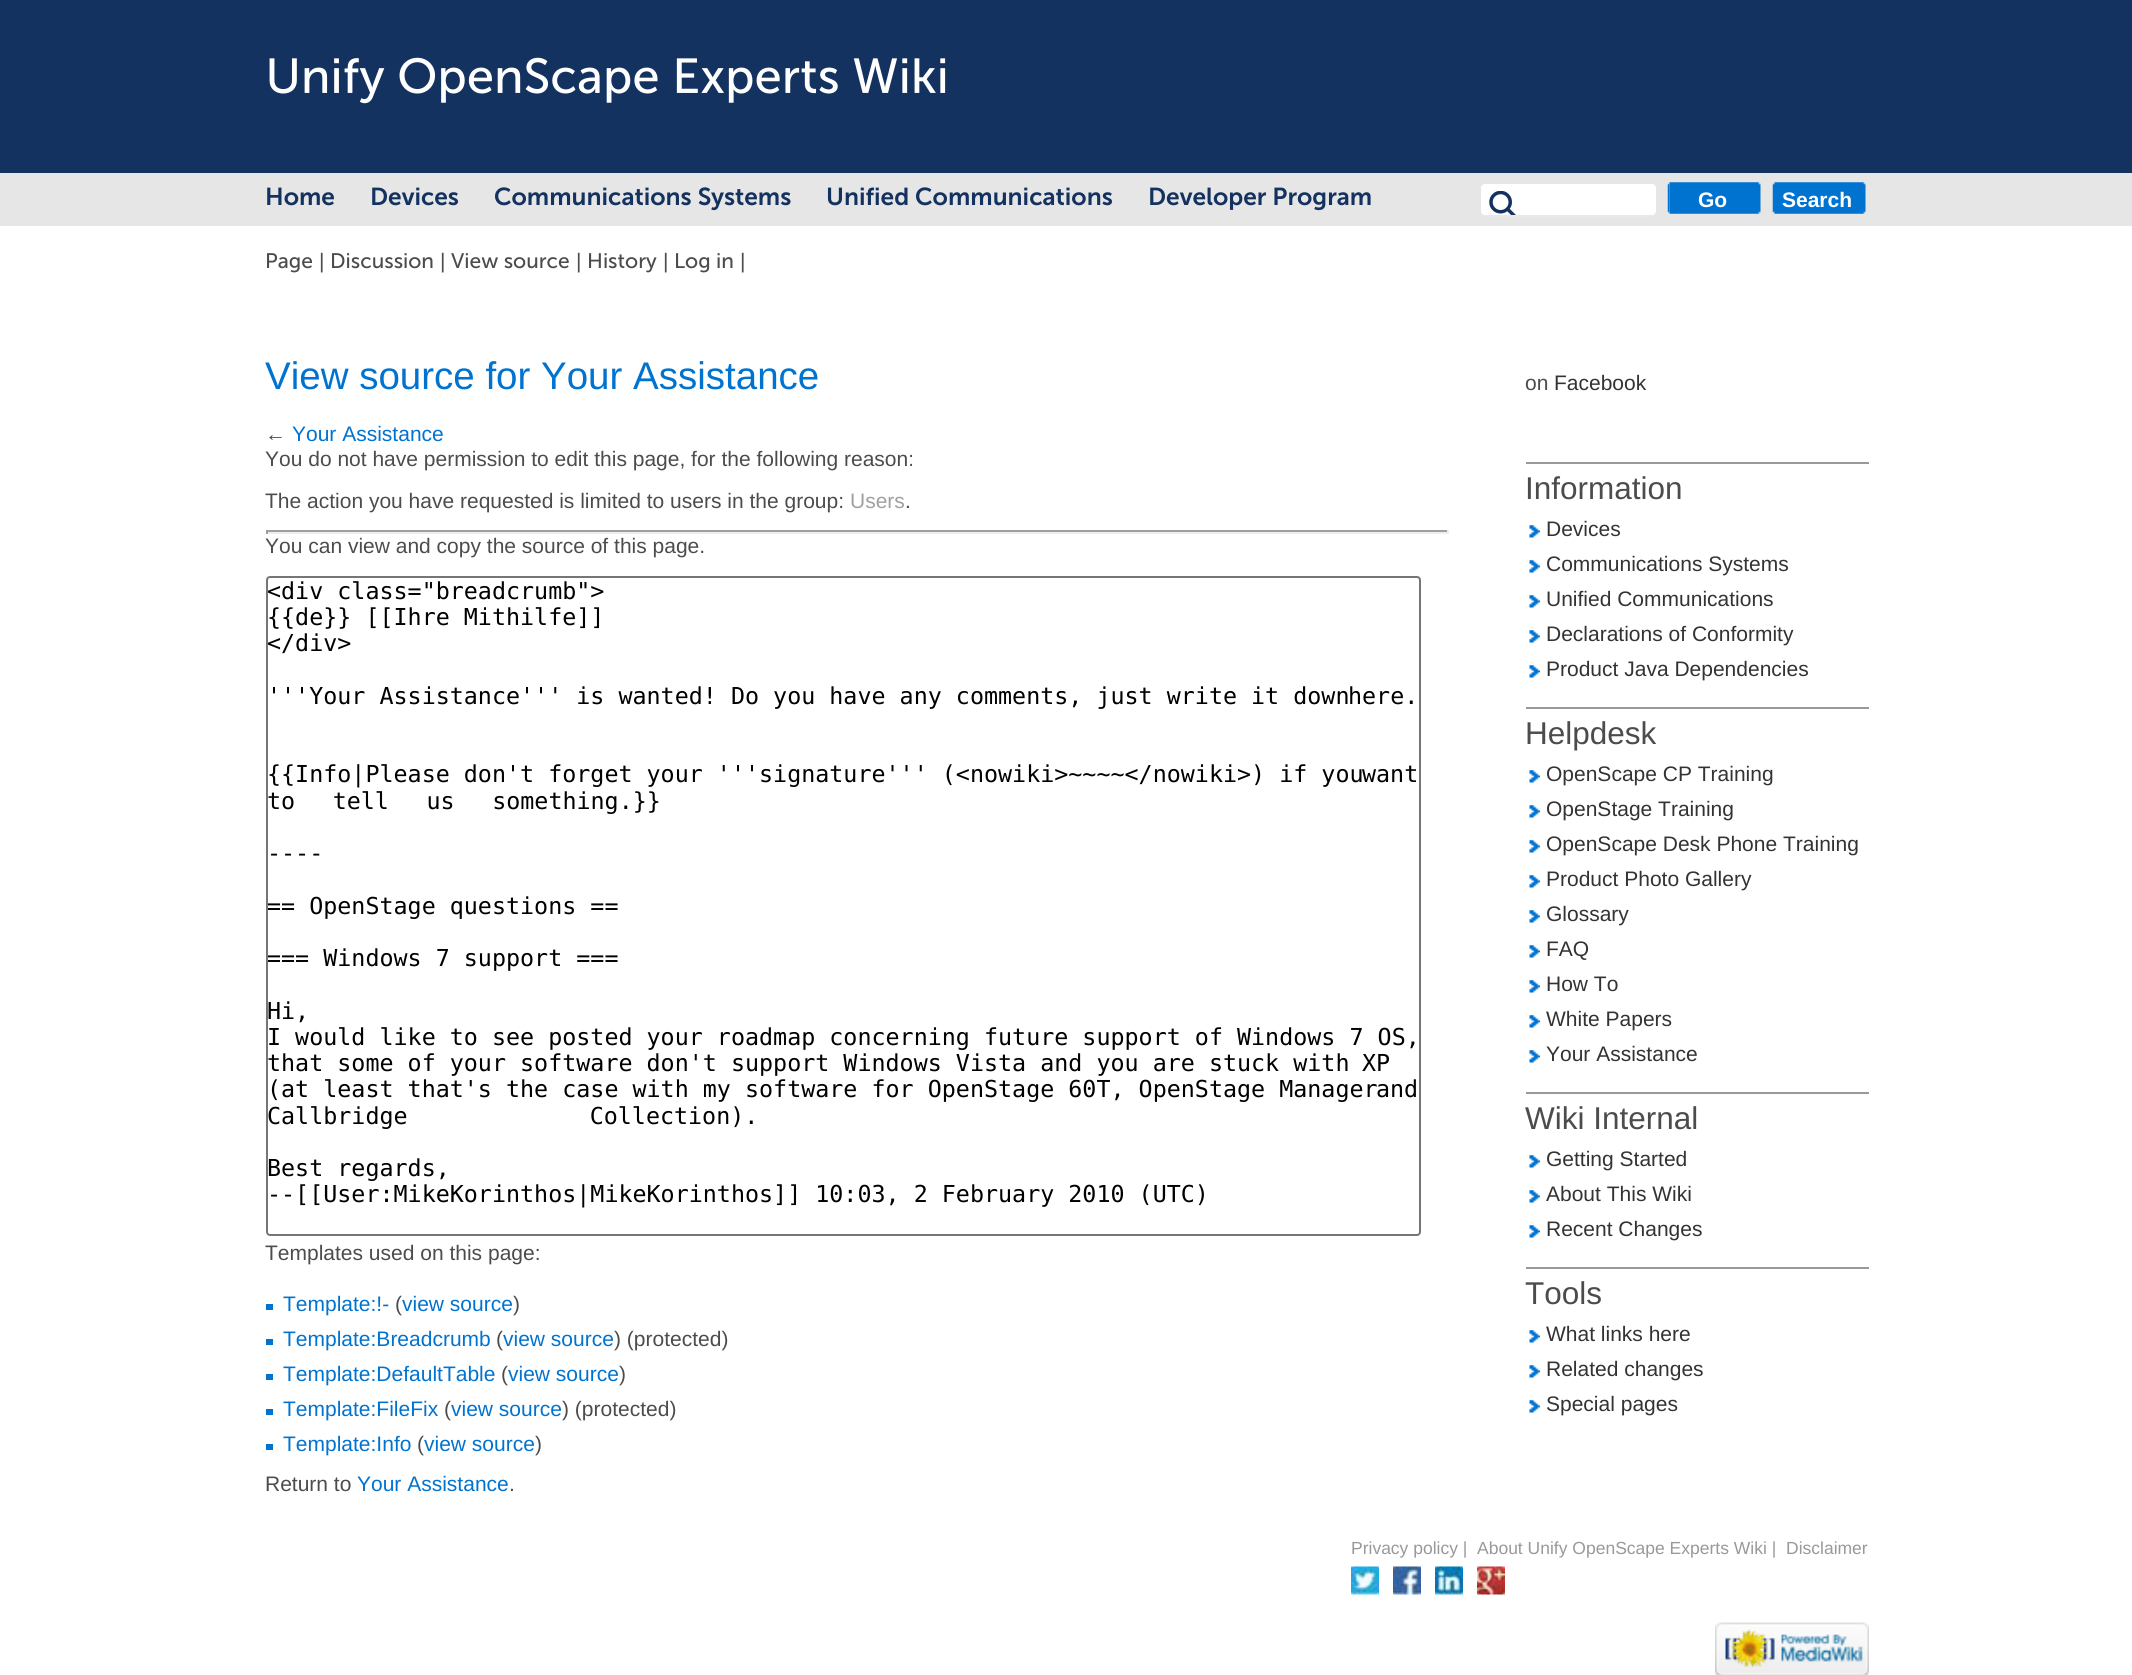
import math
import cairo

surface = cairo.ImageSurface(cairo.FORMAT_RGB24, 2132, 1675)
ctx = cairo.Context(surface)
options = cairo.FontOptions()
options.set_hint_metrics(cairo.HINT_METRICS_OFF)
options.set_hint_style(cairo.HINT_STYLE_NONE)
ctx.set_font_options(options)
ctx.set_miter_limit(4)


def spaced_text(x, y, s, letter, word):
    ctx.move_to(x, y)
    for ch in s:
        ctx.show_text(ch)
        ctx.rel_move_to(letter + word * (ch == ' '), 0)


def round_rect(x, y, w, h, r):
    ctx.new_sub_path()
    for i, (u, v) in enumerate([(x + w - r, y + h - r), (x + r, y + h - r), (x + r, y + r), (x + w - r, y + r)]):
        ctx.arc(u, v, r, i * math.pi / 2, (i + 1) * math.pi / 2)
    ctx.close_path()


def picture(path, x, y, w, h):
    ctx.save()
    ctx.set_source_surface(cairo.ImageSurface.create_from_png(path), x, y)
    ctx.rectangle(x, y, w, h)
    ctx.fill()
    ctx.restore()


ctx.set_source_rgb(1, 1, 1)
ctx.paint()
ctx.set_source_rgb(0.082, 0.196, 0.373)
ctx.rectangle(0, 0, 2132, 173)
ctx.fill()
picture("img1.png", 269, 57, 677, 47)
ctx.set_source_rgb(0.902, 0.902, 0.902)
ctx.rectangle(0, 173, 2132, 53)
ctx.fill()
ctx.select_font_face("Museo Sans SemiBold")
ctx.set_font_size(24.5)
ctx.set_source_rgb(0.082, 0.196, 0.373)
ctx.move_to(265, 205)
ctx.show_text("Home")
ctx.move_to(370, 205)
ctx.show_text("Devices")
ctx.move_to(494, 205)
ctx.show_text("Communications Systems")
ctx.move_to(826, 205)
ctx.show_text("Unified Communications")
ctx.move_to(1148, 205)
ctx.show_text("Developer Program")
ctx.set_source_rgb(0.914, 0.914, 0.914)
ctx.new_path()
ctx.move_to(1481, 214)
ctx.curve_to(1481, 216, 1483, 217, 1485, 217)
ctx.line_to(1652, 217)
ctx.curve_to(1654, 217, 1656, 215, 1656, 213)
ctx.line_to(1656, 190)
ctx.line_to(1656, 188)
ctx.line_to(1656, 212)
ctx.curve_to(1656, 214, 1654, 215, 1652, 215)
ctx.line_to(1484, 215)
ctx.curve_to(1483, 215, 1482, 215, 1481, 214)
ctx.close_path()
ctx.fill()
ctx.set_source_rgb(1, 1, 1)
round_rect(1481, 184, 175, 31, 4)
ctx.fill()
picture("img2.png", 1489, 191, 27, 24)
picture("img3.png", 1667, 183, 3, 30)
picture("img4.png", 1669, 182, 92, 32)
ctx.select_font_face("Liberation Sans", cairo.FONT_SLANT_NORMAL, cairo.FONT_WEIGHT_BOLD)
ctx.set_font_size(21)
ctx.move_to(1698, 207)
ctx.show_text("Go")
picture("img5.png", 1772, 183, 3, 30)
picture("img6.png", 1774, 182, 92, 32)
ctx.move_to(1782, 207)
ctx.show_text("Search")
ctx.select_font_face("Museo Sans")
ctx.set_source_rgb(0.298, 0.298, 0.298)
ctx.move_to(265, 268)
ctx.show_text("Page")
ctx.select_font_face("Liberation Sans")
ctx.move_to(319, 268)
ctx.show_text("|")
ctx.select_font_face("Museo Sans")
ctx.move_to(330, 268)
ctx.show_text("Discussion")
ctx.select_font_face("Liberation Sans")
ctx.move_to(440, 268)
ctx.show_text("|")
ctx.select_font_face("Museo Sans")
ctx.move_to(451, 268)
ctx.show_text("View source")
ctx.select_font_face("Liberation Sans")
ctx.move_to(576, 268)
ctx.show_text("|")
ctx.select_font_face("Museo Sans")
ctx.move_to(587, 268)
ctx.show_text("History")
ctx.select_font_face("Liberation Sans")
ctx.move_to(663, 268)
ctx.show_text("|")
ctx.select_font_face("Museo Sans")
ctx.move_to(674, 268)
ctx.show_text("Log in")
ctx.select_font_face("Liberation Sans")
ctx.move_to(740, 268)
ctx.show_text("|")
ctx.set_font_size(38.5)
ctx.set_source_rgb(0, 0.451, 0.816)
ctx.move_to(265, 389)
ctx.show_text("View source for Your Assistance")
ctx.set_font_size(21)
ctx.set_source_rgb(0.298, 0.298, 0.298)
ctx.move_to(265, 441)
ctx.show_text("←")
ctx.set_source_rgb(0, 0.451, 0.816)
ctx.move_to(292, 441)
ctx.show_text("Your Assistance")
ctx.set_source_rgb(0.298, 0.298, 0.298)
ctx.move_to(265, 466)
ctx.show_text("You do not have permission to edit this page, for the following reason:")
ctx.move_to(265, 508)
ctx.show_text("The action you have requested is limited to users in the group:")
ctx.set_source_rgb(0.627, 0.627, 0.627)
ctx.move_to(850, 508)
ctx.show_text("Users")
ctx.set_source_rgb(0.298, 0.298, 0.298)
ctx.move_to(905, 508)
ctx.show_text(".")
ctx.set_source_rgb(0.624, 0.624, 0.624)
ctx.rectangle(266, 530, 1183, 2)
ctx.fill()
ctx.set_source_rgb(0.933, 0.933, 0.933)
ctx.rectangle(1447, 530, 2, 4)
ctx.fill()
ctx.rectangle(266, 532, 1183, 2)
ctx.fill()
ctx.set_source_rgb(0.624, 0.624, 0.624)
ctx.rectangle(266, 530, 2, 4)
ctx.fill()
ctx.set_source_rgb(0.298, 0.298, 0.298)
ctx.move_to(265, 553)
ctx.show_text("You can view and copy the source of this page.")
round_rect(267, 577, 1153, 658, 3)
ctx.set_source_rgb(0.463, 0.463, 0.463)
ctx.stroke()
ctx.select_font_face("DejaVu Sans Mono")
ctx.set_font_size(23.35)
ctx.set_source_rgb(0, 0, 0)
ctx.move_to(267, 599)
ctx.show_text("<div class=\"breadcrumb\">")
ctx.move_to(267, 625)
ctx.show_text("{{de}} [[Ihre Mithilfe]]")
ctx.move_to(267, 651)
ctx.show_text("</div>")
ctx.move_to(267, 704)
ctx.show_text("'''Your Assistance''' is wanted! Do you have any comments, just write it down")
ctx.move_to(1348, 704)
ctx.show_text("here.")
ctx.move_to(267, 782)
ctx.show_text("{{Info|Please don't forget your '''signature''' (<nowiki>~~~~</nowiki>) if you")
ctx.move_to(1362, 782)
ctx.show_text("want")
spaced_text(267, 809, "to tell us something.}}", 0, 23.5)
ctx.move_to(267, 861)
ctx.show_text("----")
ctx.save()
ctx.rectangle(268, 578, 1151, 656)
ctx.clip()
ctx.move_to(267, 914)
ctx.show_text("== OpenStage questions ==")
ctx.move_to(267, 966)
ctx.show_text("=== Windows 7 support ===")
ctx.restore()
ctx.move_to(267, 1019)
ctx.show_text("Hi,")
ctx.move_to(267, 1045)
ctx.show_text("I would like to see posted your roadmap concerning future support of Windows 7 OS,")
ctx.move_to(267, 1071)
ctx.show_text("that some of your software don't support Windows Vista and you are stuck with")
ctx.move_to(1362, 1071)
ctx.show_text("XP")
ctx.move_to(267, 1097)
ctx.show_text("(at least that's the case with my software for OpenStage 60T, OpenStage Manager")
ctx.move_to(1376, 1097)
ctx.show_text("and")
spaced_text(267, 1124, "Callbridge Collection).", 0, 168)
ctx.move_to(267, 1176)
ctx.show_text("Best regards,")
ctx.move_to(267, 1202)
ctx.show_text("--[[User:MikeKorinthos|MikeKorinthos]] 10:03, 2 February 2010 (UTC)")
ctx.select_font_face("Liberation Sans")
ctx.set_font_size(21)
ctx.set_source_rgb(0.298, 0.298, 0.298)
ctx.move_to(265, 1260)
ctx.show_text("Templates used on this page:")
ctx.set_source_rgb(0, 0.451, 0.816)
ctx.rectangle(266, 1304, 7, 6)
ctx.fill()
ctx.move_to(283, 1311)
ctx.show_text("Template:!-")
ctx.set_source_rgb(0.298, 0.298, 0.298)
ctx.move_to(395, 1311)
ctx.show_text("(")
ctx.set_source_rgb(0, 0.451, 0.816)
ctx.move_to(402, 1311)
ctx.show_text("view source")
ctx.set_source_rgb(0.298, 0.298, 0.298)
ctx.move_to(513, 1311)
ctx.show_text(")")
ctx.set_source_rgb(0, 0.451, 0.816)
ctx.rectangle(266, 1339, 7, 6)
ctx.fill()
ctx.move_to(283, 1346)
ctx.show_text("Template:Breadcrumb")
ctx.set_source_rgb(0.298, 0.298, 0.298)
ctx.move_to(496, 1346)
ctx.show_text("(")
ctx.set_source_rgb(0, 0.451, 0.816)
ctx.move_to(503, 1346)
ctx.show_text("view source")
ctx.set_source_rgb(0.298, 0.298, 0.298)
ctx.move_to(614, 1346)
ctx.show_text(") (protected)")
ctx.set_source_rgb(0, 0.451, 0.816)
ctx.rectangle(266, 1374, 7, 6)
ctx.fill()
ctx.move_to(283, 1381)
ctx.show_text("Template:DefaultTable")
ctx.set_source_rgb(0.298, 0.298, 0.298)
ctx.move_to(501, 1381)
ctx.show_text("(")
ctx.set_source_rgb(0, 0.451, 0.816)
ctx.move_to(508, 1381)
ctx.show_text("view source")
ctx.set_source_rgb(0.298, 0.298, 0.298)
ctx.move_to(619, 1381)
ctx.show_text(")")
ctx.set_source_rgb(0, 0.451, 0.816)
ctx.rectangle(266, 1409, 7, 6)
ctx.fill()
ctx.move_to(283, 1416)
ctx.show_text("Template:FileFix")
ctx.set_source_rgb(0.298, 0.298, 0.298)
ctx.move_to(444, 1416)
ctx.show_text("(")
ctx.set_source_rgb(0, 0.451, 0.816)
ctx.move_to(451, 1416)
ctx.show_text("view source")
ctx.set_source_rgb(0.298, 0.298, 0.298)
ctx.move_to(562, 1416)
ctx.show_text(") (protected)")
ctx.set_source_rgb(0, 0.451, 0.816)
ctx.rectangle(266, 1444, 7, 6)
ctx.fill()
ctx.move_to(283, 1451)
ctx.show_text("Template:Info")
ctx.set_source_rgb(0.298, 0.298, 0.298)
ctx.move_to(417, 1451)
ctx.show_text("(")
ctx.set_source_rgb(0, 0.451, 0.816)
ctx.move_to(424, 1451)
ctx.show_text("view source")
ctx.set_source_rgb(0.298, 0.298, 0.298)
ctx.move_to(535, 1451)
ctx.show_text(")")
ctx.move_to(265, 1491)
ctx.show_text("Return to")
ctx.set_source_rgb(0, 0.451, 0.816)
ctx.move_to(357, 1491)
ctx.show_text("Your Assistance")
ctx.set_source_rgb(0.298, 0.298, 0.298)
ctx.move_to(509, 1491)
ctx.show_text(".")
ctx.move_to(1525, 390)
ctx.show_text("on")
ctx.set_source_rgb(0.2, 0.2, 0.2)
ctx.move_to(1554, 390)
ctx.show_text("Facebook")
ctx.set_source_rgb(0.6, 0.6, 0.6)
ctx.rectangle(1526, 462, 343, 2)
ctx.fill()
ctx.set_font_size(31.5)
ctx.set_source_rgb(0.298, 0.298, 0.298)
ctx.move_to(1525, 499)
ctx.show_text("Information")
picture("img7.png", 1529, 525, 11, 13)
ctx.set_font_size(21)
ctx.set_source_rgb(0.2, 0.2, 0.2)
ctx.move_to(1546, 536)
ctx.show_text("Devices")
picture("img7.png", 1529, 560, 11, 13)
ctx.move_to(1546, 571)
ctx.show_text("Communications Systems")
picture("img7.png", 1529, 595, 11, 13)
ctx.move_to(1546, 606)
ctx.show_text("Unified Communications")
picture("img7.png", 1529, 630, 11, 13)
ctx.move_to(1546, 641)
ctx.show_text("Declarations of Conformity")
picture("img7.png", 1529, 665, 11, 13)
ctx.move_to(1546, 676)
ctx.show_text("Product Java Dependencies")
ctx.set_source_rgb(0.6, 0.6, 0.6)
ctx.rectangle(1526, 707, 343, 2)
ctx.fill()
ctx.set_font_size(31.5)
ctx.set_source_rgb(0.298, 0.298, 0.298)
ctx.move_to(1525, 744)
ctx.show_text("Helpdesk")
picture("img7.png", 1529, 770, 11, 13)
ctx.set_font_size(21)
ctx.set_source_rgb(0.2, 0.2, 0.2)
ctx.move_to(1546, 781)
ctx.show_text("OpenScape CP Training")
picture("img7.png", 1529, 805, 11, 13)
ctx.move_to(1546, 816)
ctx.show_text("OpenStage Training")
picture("img7.png", 1529, 840, 11, 13)
ctx.move_to(1546, 851)
ctx.show_text("OpenScape Desk Phone Training")
picture("img7.png", 1529, 875, 11, 13)
ctx.move_to(1546, 886)
ctx.show_text("Product Photo Gallery")
picture("img7.png", 1529, 910, 11, 13)
ctx.move_to(1546, 921)
ctx.show_text("Glossary")
picture("img7.png", 1529, 945, 11, 13)
ctx.move_to(1546, 956)
ctx.show_text("FAQ")
picture("img7.png", 1529, 980, 11, 13)
ctx.move_to(1546, 991)
ctx.show_text("How To")
picture("img7.png", 1529, 1015, 11, 13)
ctx.move_to(1546, 1026)
ctx.show_text("White Papers")
picture("img7.png", 1529, 1050, 11, 13)
ctx.move_to(1546, 1061)
ctx.show_text("Your Assistance")
ctx.set_source_rgb(0.6, 0.6, 0.6)
ctx.rectangle(1526, 1092, 343, 2)
ctx.fill()
ctx.set_font_size(31.5)
ctx.set_source_rgb(0.298, 0.298, 0.298)
ctx.move_to(1525, 1129)
ctx.show_text("Wiki Internal")
picture("img7.png", 1529, 1155, 11, 13)
ctx.set_font_size(21)
ctx.set_source_rgb(0.2, 0.2, 0.2)
ctx.move_to(1546, 1166)
ctx.show_text("Getting Started")
picture("img7.png", 1529, 1190, 11, 13)
ctx.move_to(1546, 1201)
ctx.show_text("About This Wiki")
picture("img7.png", 1529, 1225, 11, 13)
ctx.move_to(1546, 1236)
ctx.show_text("Recent Changes")
ctx.set_source_rgb(0.6, 0.6, 0.6)
ctx.rectangle(1526, 1267, 343, 2)
ctx.fill()
ctx.set_font_size(31.5)
ctx.set_source_rgb(0.298, 0.298, 0.298)
ctx.move_to(1525, 1304)
ctx.show_text("Tools")
picture("img7.png", 1529, 1330, 11, 13)
ctx.set_font_size(21)
ctx.set_source_rgb(0.2, 0.2, 0.2)
ctx.move_to(1546, 1341)
ctx.show_text("What links here")
picture("img7.png", 1529, 1365, 11, 13)
ctx.move_to(1546, 1376)
ctx.show_text("Related changes")
picture("img7.png", 1529, 1400, 11, 13)
ctx.move_to(1546, 1411)
ctx.show_text("Special pages")
ctx.set_font_size(17.5)
ctx.set_source_rgb(0.6, 0.6, 0.6)
ctx.move_to(1351, 1554)
ctx.show_text("Privacy policy |")
ctx.move_to(1477, 1554)
ctx.show_text("About Unify OpenScape Experts Wiki |")
ctx.move_to(1786, 1554)
ctx.show_text("Disclaimer")
picture("img8.png", 1351, 1566, 28, 29)
picture("img9.png", 1393, 1566, 28, 29)
picture("img10.png", 1435, 1566, 28, 29)
picture("img11.png", 1477, 1566, 28, 29)
picture("img12.png", 1715, 1622, 154, 53)
surface.write_to_png("page.png")
